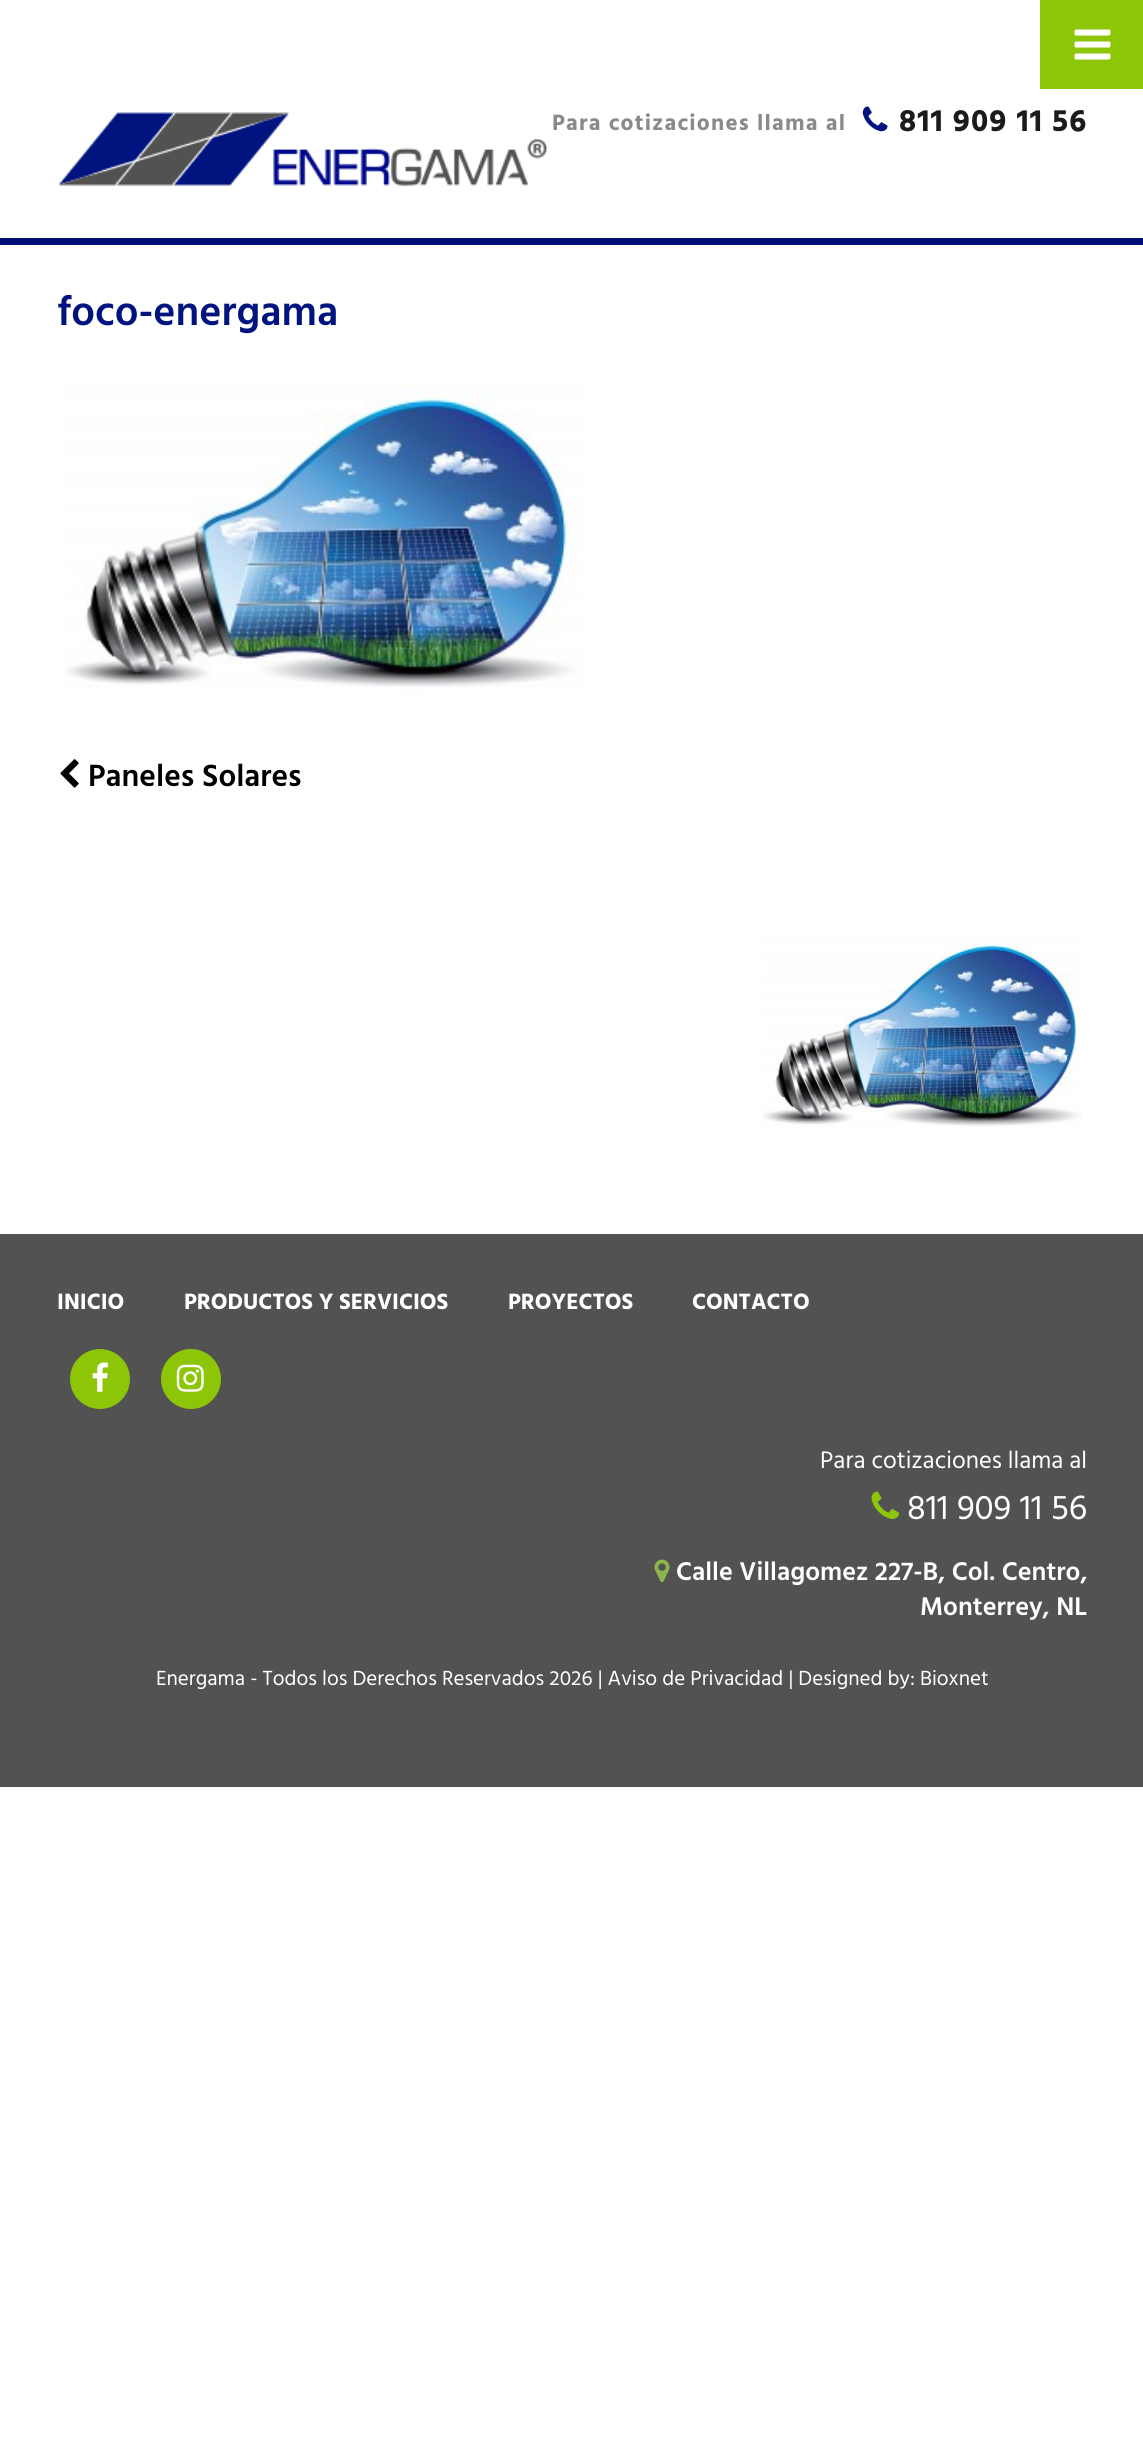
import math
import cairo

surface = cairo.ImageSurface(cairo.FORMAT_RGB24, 1143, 2438)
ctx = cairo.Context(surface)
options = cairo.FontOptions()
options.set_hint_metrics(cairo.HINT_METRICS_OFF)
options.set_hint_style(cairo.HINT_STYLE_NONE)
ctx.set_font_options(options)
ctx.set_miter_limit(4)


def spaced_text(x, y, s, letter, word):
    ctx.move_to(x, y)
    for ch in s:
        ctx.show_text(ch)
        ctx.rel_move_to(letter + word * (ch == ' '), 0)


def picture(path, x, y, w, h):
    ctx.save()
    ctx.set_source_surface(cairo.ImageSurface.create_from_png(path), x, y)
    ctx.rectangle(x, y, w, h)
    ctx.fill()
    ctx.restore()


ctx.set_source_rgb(1, 1, 1)
ctx.paint()
ctx.set_source_rgb(0.553, 0.773, 0.031)
ctx.rectangle(1040, 0, 103, 89)
ctx.fill()
picture("img1.png", 1074, 29, 37, 31)
picture("img2.png", 59, 112, 488, 74)
ctx.select_font_face("Hind Guntur", cairo.FONT_SLANT_NORMAL, cairo.FONT_WEIGHT_BOLD)
ctx.set_font_size(22.75)
ctx.set_source_rgb(0.541, 0.541, 0.541)
spaced_text(552, 130, "Para cotizaciones llama al", 1.25, 0)
picture("img3.png", 862, 106, 26, 26)
ctx.set_font_size(31.5)
ctx.set_source_rgb(0.106, 0.106, 0.106)
spaced_text(899, 131, "811 909 11 56", 1.25, 0)
ctx.set_source_rgb(0, 0.051, 0.467)
ctx.rectangle(0, 238, 1143, 7)
ctx.fill()
ctx.select_font_face("Hind Guntur SemiBold")
ctx.set_font_size(42)
ctx.set_source_rgb(0.004, 0.075, 0.498)
ctx.move_to(57, 325)
ctx.show_text("foco-energama")
picture("img4.png", 65, 384, 517, 308)
picture("img5.png", 60, 759, 19, 29)
ctx.set_font_size(31.5)
ctx.set_source_rgb(0, 0, 0)
ctx.move_to(88, 786)
ctx.show_text("Paneles Solares")
picture("img6.png", 762, 936, 320, 193)
ctx.set_source_rgb(0.322, 0.322, 0.322)
ctx.rectangle(0, 1234, 1143, 553)
ctx.fill()
ctx.select_font_face("Hind Guntur", cairo.FONT_SLANT_NORMAL, cairo.FONT_WEIGHT_BOLD)
ctx.set_font_size(22.75)
ctx.set_source_rgb(1, 1, 1)
ctx.move_to(57, 1309)
ctx.show_text("INICIO")
ctx.move_to(184, 1309)
ctx.show_text("PRODUCTOS Y SERVICIOS")
ctx.move_to(508, 1309)
ctx.show_text("PROYECTOS")
ctx.move_to(692, 1309)
ctx.show_text("CONTACTO")
ctx.set_source_rgb(0.553, 0.773, 0.031)
ctx.new_path()
ctx.arc(100, 1379, 30, 0, 2 * math.pi)
ctx.fill()
picture("img7.png", 92, 1362, 16, 30)
ctx.arc(191, 1379, 30, 0, 2 * math.pi)
ctx.fill()
picture("img8.png", 176, 1364, 28, 28)
ctx.select_font_face("Hind Guntur")
ctx.set_font_size(24.5)
ctx.set_source_rgb(1, 1, 1)
ctx.move_to(820, 1468)
ctx.show_text("Para cotizaciones llama al")
picture("img9.png", 871, 1491, 28, 28)
ctx.set_font_size(35)
ctx.move_to(907, 1519)
ctx.show_text("811 909 11 56")
picture("img10.png", 654, 1559, 16, 23)
ctx.select_font_face("Hind Guntur SemiBold")
ctx.set_font_size(26.25)
ctx.move_to(676, 1580)
ctx.show_text("Calle Villagomez 227-B, Col. Centro,")
ctx.move_to(920, 1615)
ctx.show_text("Monterrey, NL")
ctx.select_font_face("Hind Guntur")
ctx.set_font_size(21)
ctx.move_to(156, 1685)
ctx.show_text("Energama - Todos los Derechos Reservados 2026 | Aviso de Privacidad | Designed by: Bioxnet")
surface.write_to_png("page.png")
